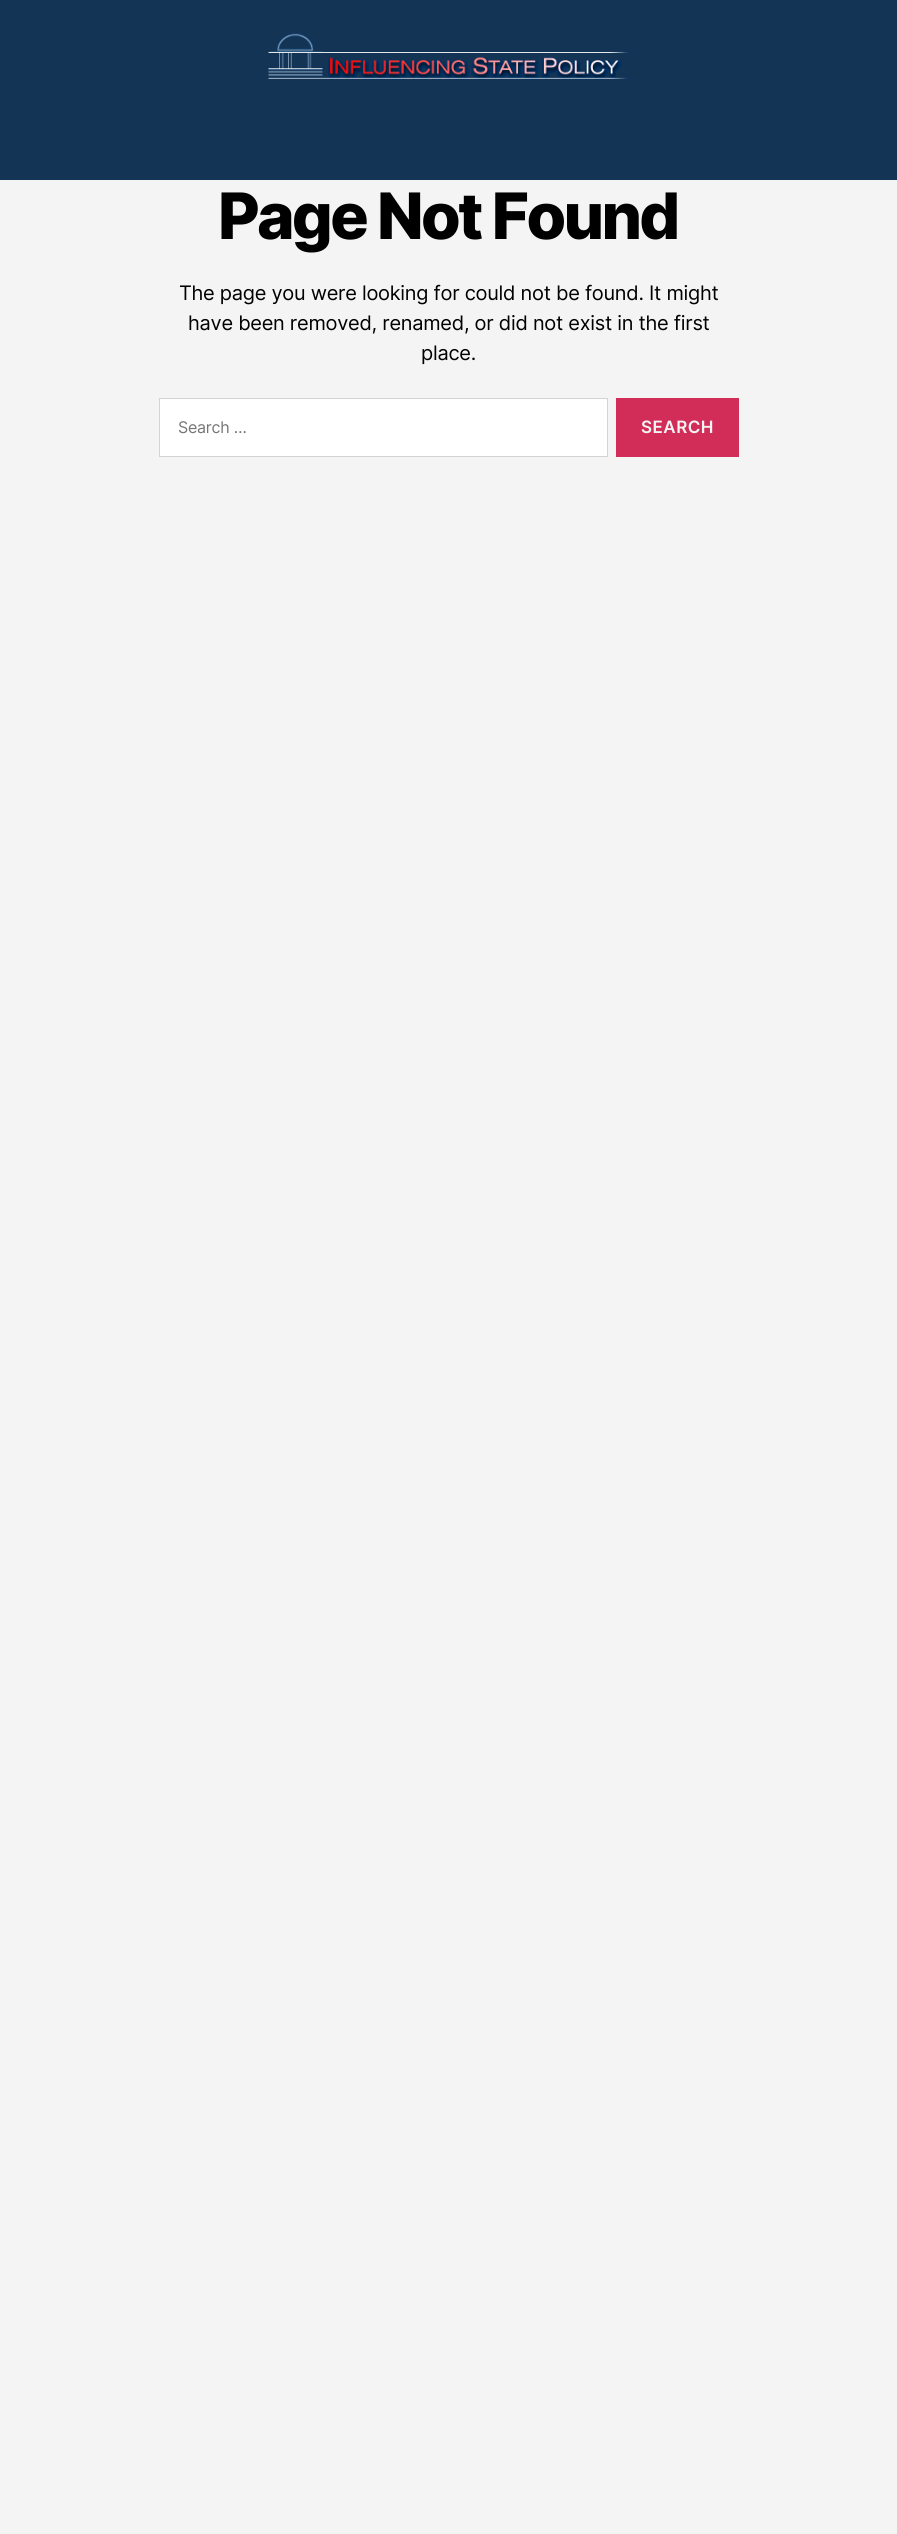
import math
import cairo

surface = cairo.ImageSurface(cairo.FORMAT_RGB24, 897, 2534)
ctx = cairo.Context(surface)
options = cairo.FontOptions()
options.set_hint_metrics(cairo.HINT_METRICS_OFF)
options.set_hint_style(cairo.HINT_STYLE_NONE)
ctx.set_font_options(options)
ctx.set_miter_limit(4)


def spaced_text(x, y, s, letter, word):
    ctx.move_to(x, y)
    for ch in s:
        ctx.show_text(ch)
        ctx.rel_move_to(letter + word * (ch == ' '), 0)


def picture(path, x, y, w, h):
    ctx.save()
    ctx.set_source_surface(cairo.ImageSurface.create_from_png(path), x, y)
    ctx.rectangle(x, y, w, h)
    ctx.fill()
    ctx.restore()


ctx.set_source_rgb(0.957, 0.957, 0.957)
ctx.paint()
ctx.set_source_rgb(0.078, 0.204, 0.329)
ctx.rectangle(0, 0, 897, 180)
ctx.fill()
picture("img1.png", 268, 33, 362, 47)
ctx.select_font_face("Inter ExtraBold")
ctx.set_font_size(64)
ctx.set_source_rgb(0, 0, 0)
spaced_text(218, 239, "Page Not Found", -2.7, 0)
ctx.select_font_face("Inter")
ctx.set_font_size(20)
spaced_text(179, 300, "The page you were looking for could not be found. It might", -0.27, 0)
spaced_text(188, 330, "have been removed, renamed, or did not exist in the first", -0.27, 0)
spaced_text(421, 360, "place.", -0.27, 0)
ctx.set_source_rgb(1, 1, 1)
ctx.rectangle(159.5, 398.5, 448, 58)
ctx.fill_preserve()
ctx.set_source_rgb(0.827, 0.827, 0.827)
ctx.set_line_width(1)
ctx.stroke()
ctx.set_font_size(16)
ctx.set_source_rgb(0.459, 0.459, 0.459)
spaced_text(178, 433, "Search …", -0.25, 0)
ctx.set_source_rgb(0.824, 0.173, 0.345)
ctx.rectangle(616, 398, 123, 59)
ctx.fill()
ctx.select_font_face("Inter SemiBold")
ctx.set_font_size(17)
ctx.set_source_rgb(0.957, 0.957, 0.957)
spaced_text(641, 433, "SEARCH", 0.5, 0)
surface.write_to_png("page.png")
